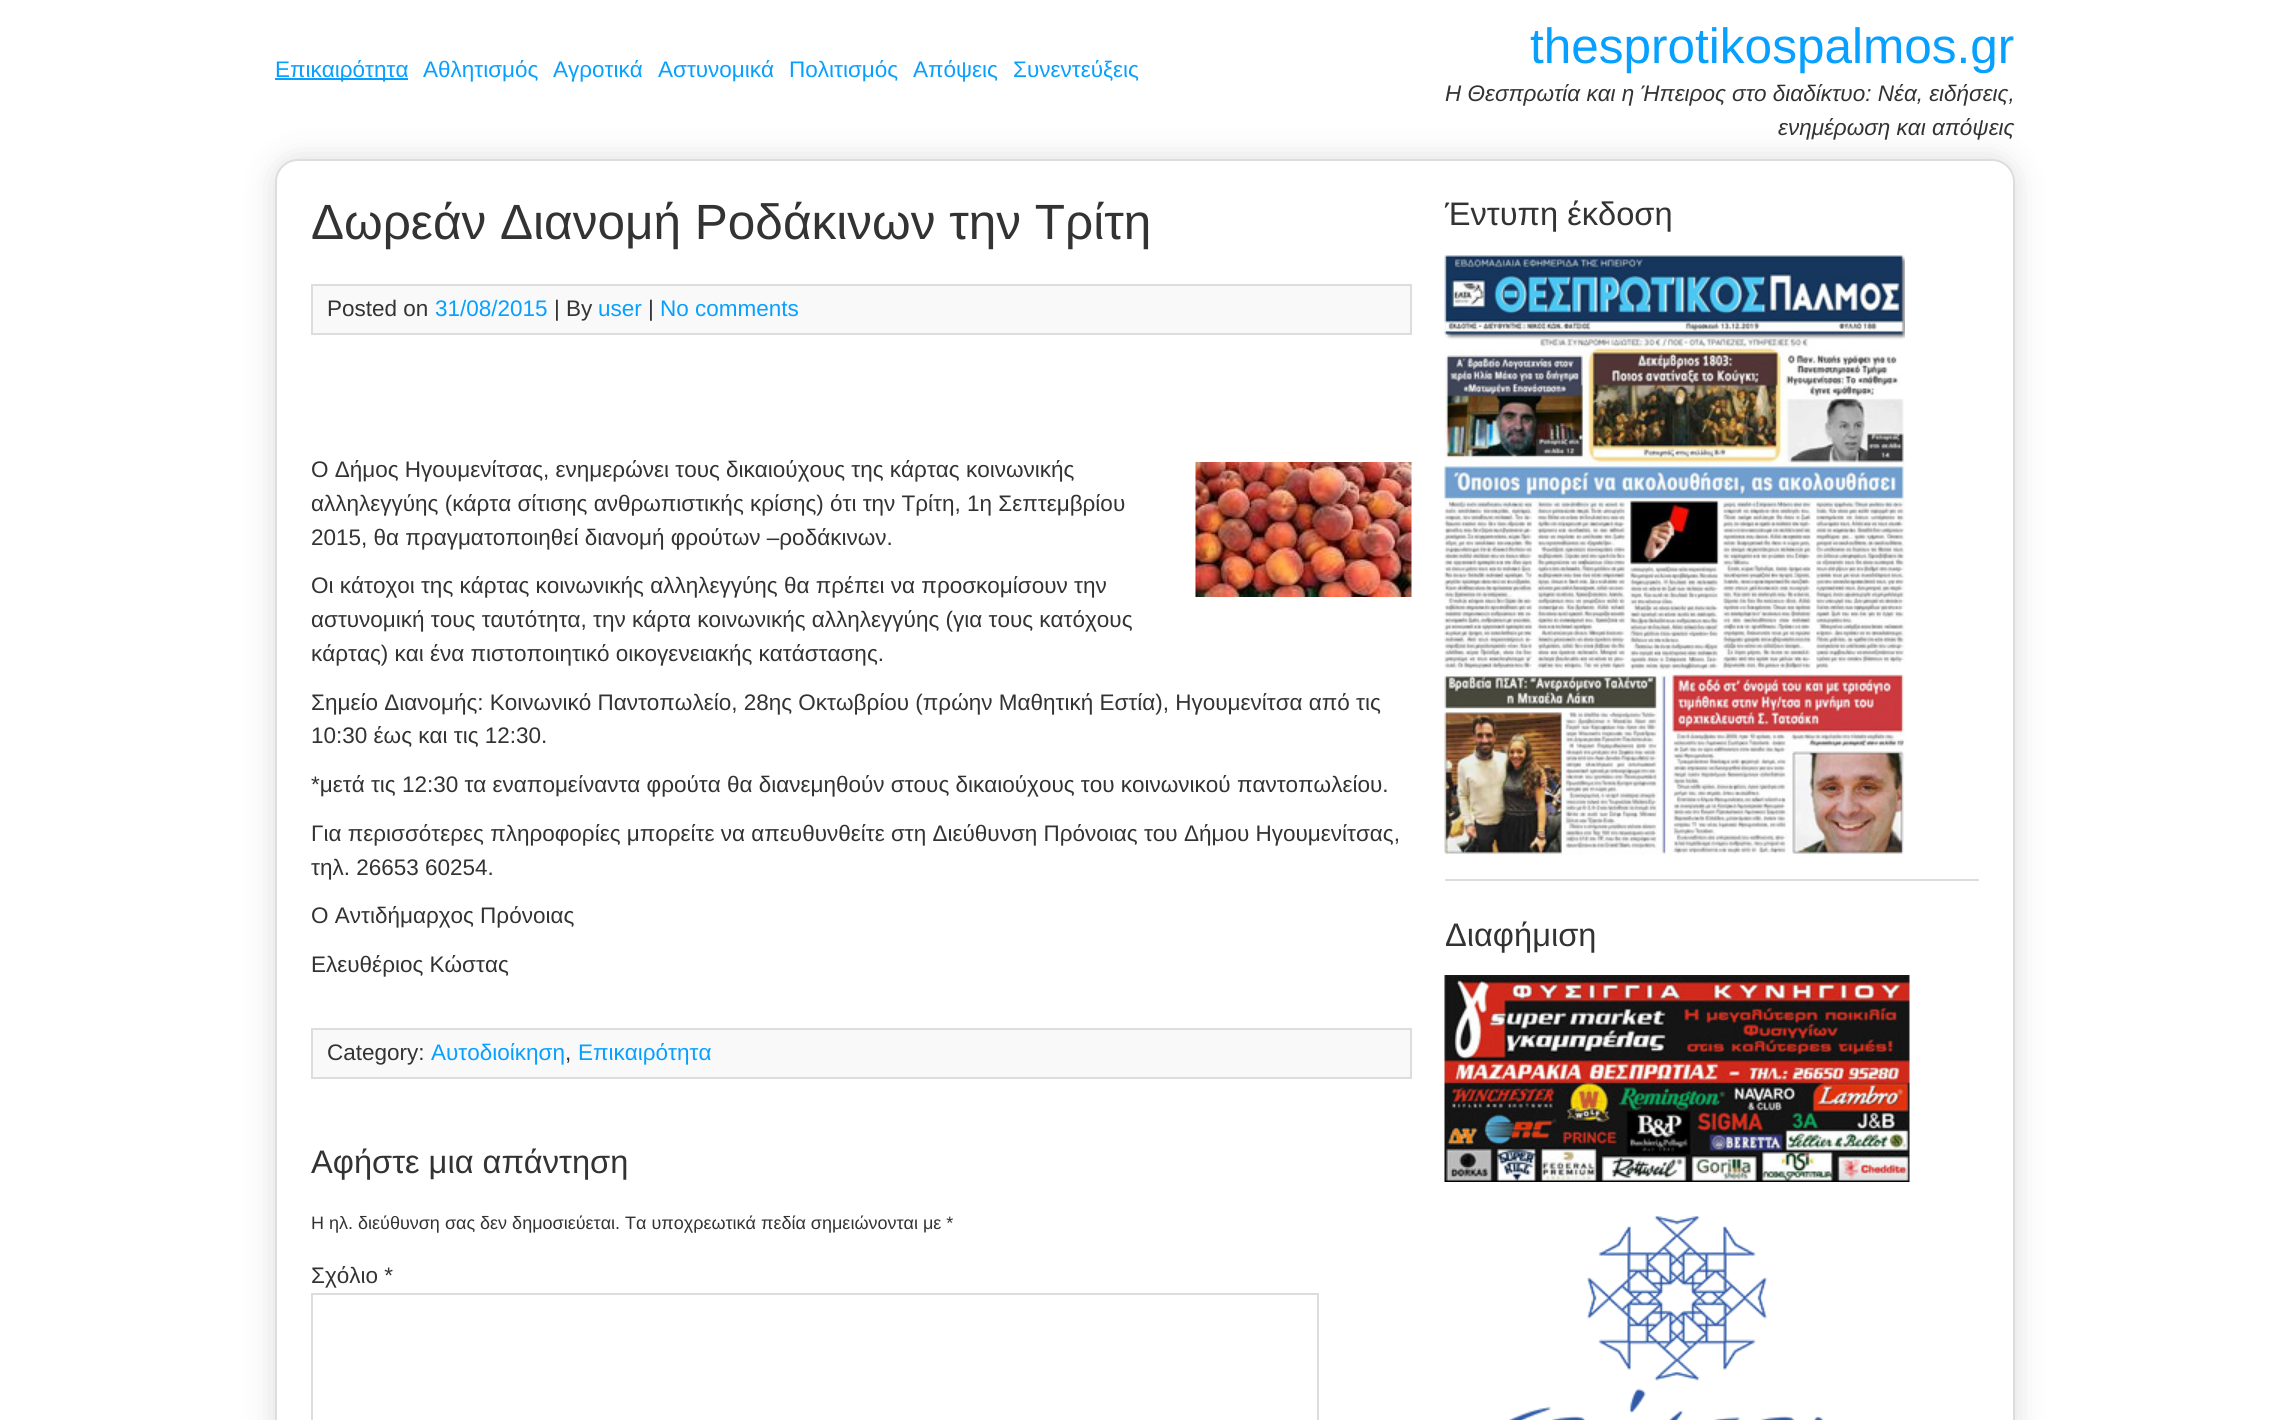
import math
import cairo

surface = cairo.ImageSurface(cairo.FORMAT_RGB24, 2288, 1420)
ctx = cairo.Context(surface)
options = cairo.FontOptions()
options.set_hint_metrics(cairo.HINT_METRICS_OFF)
options.set_hint_style(cairo.HINT_STYLE_NONE)
ctx.set_font_options(options)
ctx.set_miter_limit(4)


def round_rect(x, y, w, h, r):
    ctx.new_sub_path()
    for i, (u, v) in enumerate([(x + w - r, y + h - r), (x + r, y + h - r), (x + r, y + r), (x + w - r, y + r)]):
        ctx.arc(u, v, r, i * math.pi / 2, (i + 1) * math.pi / 2)
    ctx.close_path()


def shadow(x, y, w, h, r, blur, alpha):
    ctx.push_group_with_content(cairo.CONTENT_ALPHA)
    ctx.set_operator(cairo.OPERATOR_SOURCE)
    for i in range(15, -16, -2):
        e = blur * i / 6
        if min(w, h) + 2 * e > 0:
            ctx.set_source_rgba(0, 0, 0, alpha * math.erfc((i - 1) / 8.5) / 2)
            round_rect(x - e, y - e, w + 2 * e, h + 2 * e, max(0, min(r + e + blur * .6, min(w, h) / 2 + e)))
            ctx.fill()
    ctx.mask(ctx.pop_group())


def picture(path, x, y, w, h):
    ctx.save()
    ctx.set_source_surface(cairo.ImageSurface.create_from_png(path), x, y)
    ctx.rectangle(x, y, w, h)
    ctx.fill()
    ctx.restore()


ctx.set_source_rgb(1, 1, 1)
ctx.paint()
ctx.set_source_rgb(0.031, 0.627, 1)
ctx.rectangle(275, 78, 133, 2)
ctx.fill()
ctx.select_font_face("Liberation Sans")
ctx.set_font_size(22.5)
ctx.move_to(275, 77)
ctx.show_text("Επικαιρότητα")
ctx.move_to(423, 77)
ctx.show_text("Αθλητισμός")
ctx.move_to(553, 77)
ctx.show_text("Αγροτικά")
ctx.move_to(658, 77)
ctx.show_text("Αστυνομικά")
ctx.move_to(789, 77)
ctx.show_text("Πολιτισμός")
ctx.move_to(913, 77)
ctx.show_text("Απόψεις")
ctx.move_to(1013, 77)
ctx.show_text("Συνεντεύξεις")
ctx.set_font_size(49.5)
ctx.move_to(1530, 63)
ctx.show_text("thesprotikospalmos.gr")
ctx.select_font_face("Liberation Sans", cairo.FONT_SLANT_ITALIC)
ctx.set_font_size(22.5)
ctx.set_source_rgb(0.2, 0.2, 0.2)
ctx.move_to(1445, 101)
ctx.show_text("Η Θεσπρωτία και η Ήπειρος στο διαδίκτυο: Νέα, ειδήσεις,")
ctx.set_source_rgb(0.867, 0.867, 0.867)
shadow(275, 159, 1740, 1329, 23, 15, 1)
ctx.set_source_rgb(0.2, 0.2, 0.2)
ctx.move_to(1778, 135)
ctx.show_text("ενημέρωση και απόψεις")
ctx.set_source_rgb(1, 1, 1)
round_rect(276, 160, 1738, 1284, 22)
ctx.fill_preserve()
ctx.set_source_rgb(0.867, 0.867, 0.867)
ctx.stroke()
ctx.select_font_face("Liberation Sans")
ctx.set_font_size(49.5)
ctx.set_source_rgb(0.2, 0.2, 0.2)
ctx.move_to(311, 239)
ctx.show_text("Δωρεάν Διανομή Ροδάκινων την Τρίτη")
ctx.set_source_rgb(0.973, 0.973, 0.973)
ctx.rectangle(312, 285, 1099, 49)
ctx.fill_preserve()
ctx.set_source_rgb(0.867, 0.867, 0.867)
ctx.stroke()
ctx.set_font_size(22.5)
ctx.set_source_rgb(0.2, 0.2, 0.2)
ctx.move_to(327, 316)
ctx.show_text("Posted on")
ctx.set_source_rgb(0.031, 0.627, 1)
ctx.move_to(435, 316)
ctx.show_text("31/08/2015")
ctx.set_source_rgb(0.2, 0.2, 0.2)
ctx.move_to(554, 316)
ctx.show_text("| By")
ctx.set_source_rgb(0.031, 0.627, 1)
ctx.move_to(598, 316)
ctx.show_text("user")
ctx.set_source_rgb(0.2, 0.2, 0.2)
ctx.move_to(648, 316)
ctx.show_text("|")
ctx.set_source_rgb(0.031, 0.627, 1)
ctx.move_to(660, 316)
ctx.show_text("No comments")
ctx.set_source_rgb(0.2, 0.2, 0.2)
ctx.move_to(311, 477)
ctx.show_text("Ο Δήμος Ηγουμενίτσας, ενημερώνει τους δικαιούχους της κάρτας κοινωνικής")
picture("img1.png", 1195, 462, 217, 135)
ctx.move_to(311, 511)
ctx.show_text("αλληλεγγύης (κάρτα σίτισης ανθρωπιστικής κρίσης) ότι την Τρίτη, 1η Σεπτεμβρίου")
ctx.move_to(311, 545)
ctx.show_text("2015, θα πραγματοποιηθεί διανομή φρούτων –ροδάκινων.")
ctx.move_to(311, 593)
ctx.show_text("Οι κάτοχοι της κάρτας κοινωνικής αλληλεγγύης θα πρέπει να προσκομίσουν την")
ctx.move_to(311, 627)
ctx.show_text("αστυνομική τους ταυτότητα, την κάρτα κοινωνικής αλληλεγγύης (για τους κατόχους")
ctx.move_to(311, 661)
ctx.show_text("κάρτας) και ένα πιστοποιητικό οικογενειακής κατάστασης.")
ctx.move_to(311, 710)
ctx.show_text("Σημείο Διανομής: Κοινωνικό Παντοπωλείο, 28ης Οκτωβρίου (πρώην Μαθητική Εστία), Ηγουμενίτσα από τις")
ctx.move_to(311, 743)
ctx.show_text("10:30 έως και τις 12:30.")
ctx.move_to(311, 792)
ctx.show_text("*μετά τις 12:30 τα εναπομείναντα φρούτα θα διανεμηθούν στους δικαιούχους του κοινωνικού παντοπωλείου.")
ctx.move_to(311, 841)
ctx.show_text("Για περισσότερες πληροφορίες μπορείτε να απευθυνθείτε στη Διεύθυνση Πρόνοιας του Δήμου Ηγουμενίτσας,")
ctx.move_to(311, 875)
ctx.show_text("τηλ. 26653 60254.")
ctx.move_to(311, 923)
ctx.show_text("Ο Αντιδήμαρχος Πρόνοιας")
ctx.move_to(311, 972)
ctx.show_text("Ελευθέριος Κώστας")
ctx.set_source_rgb(0.973, 0.973, 0.973)
ctx.rectangle(312, 1029, 1099, 49)
ctx.fill_preserve()
ctx.set_source_rgb(0.867, 0.867, 0.867)
ctx.stroke()
ctx.set_source_rgb(0.2, 0.2, 0.2)
ctx.move_to(327, 1060)
ctx.show_text("Category:")
ctx.set_source_rgb(0.031, 0.627, 1)
ctx.move_to(431, 1060)
ctx.show_text("Αυτοδιοίκηση")
ctx.set_source_rgb(0.2, 0.2, 0.2)
ctx.move_to(565, 1060)
ctx.show_text(",")
ctx.set_source_rgb(0.031, 0.627, 1)
ctx.move_to(578, 1060)
ctx.show_text("Επικαιρότητα")
ctx.set_font_size(32.6)
ctx.set_source_rgb(0.2, 0.2, 0.2)
ctx.move_to(311, 1173)
ctx.show_text("Αφήστε μια απάντηση")
ctx.set_font_size(18)
ctx.move_to(311, 1229)
ctx.show_text("Η ηλ. διεύθυνση σας δεν δημοσιεύεται. Τα υποχρεωτικά πεδία σημειώνονται με *")
ctx.set_font_size(22.5)
ctx.move_to(311, 1283)
ctx.show_text("Σχόλιο *")
ctx.rectangle(312, 1294, 1006, 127)
ctx.set_source_rgb(0.867, 0.867, 0.867)
ctx.stroke()
ctx.rectangle(1445, 879, 534, 2)
ctx.fill()
ctx.set_font_size(32.6)
ctx.set_source_rgb(0.2, 0.2, 0.2)
ctx.move_to(1445, 225)
ctx.show_text("Έντυπη έκδοση")
picture("img2.png", 1444, 255, 461, 600)
ctx.move_to(1445, 946)
ctx.show_text("Διαφήμιση")
picture("img3.png", 1444, 975, 466, 207)
picture("img4.png", 1508, 1216, 316, 204)
surface.write_to_png("page.png")
